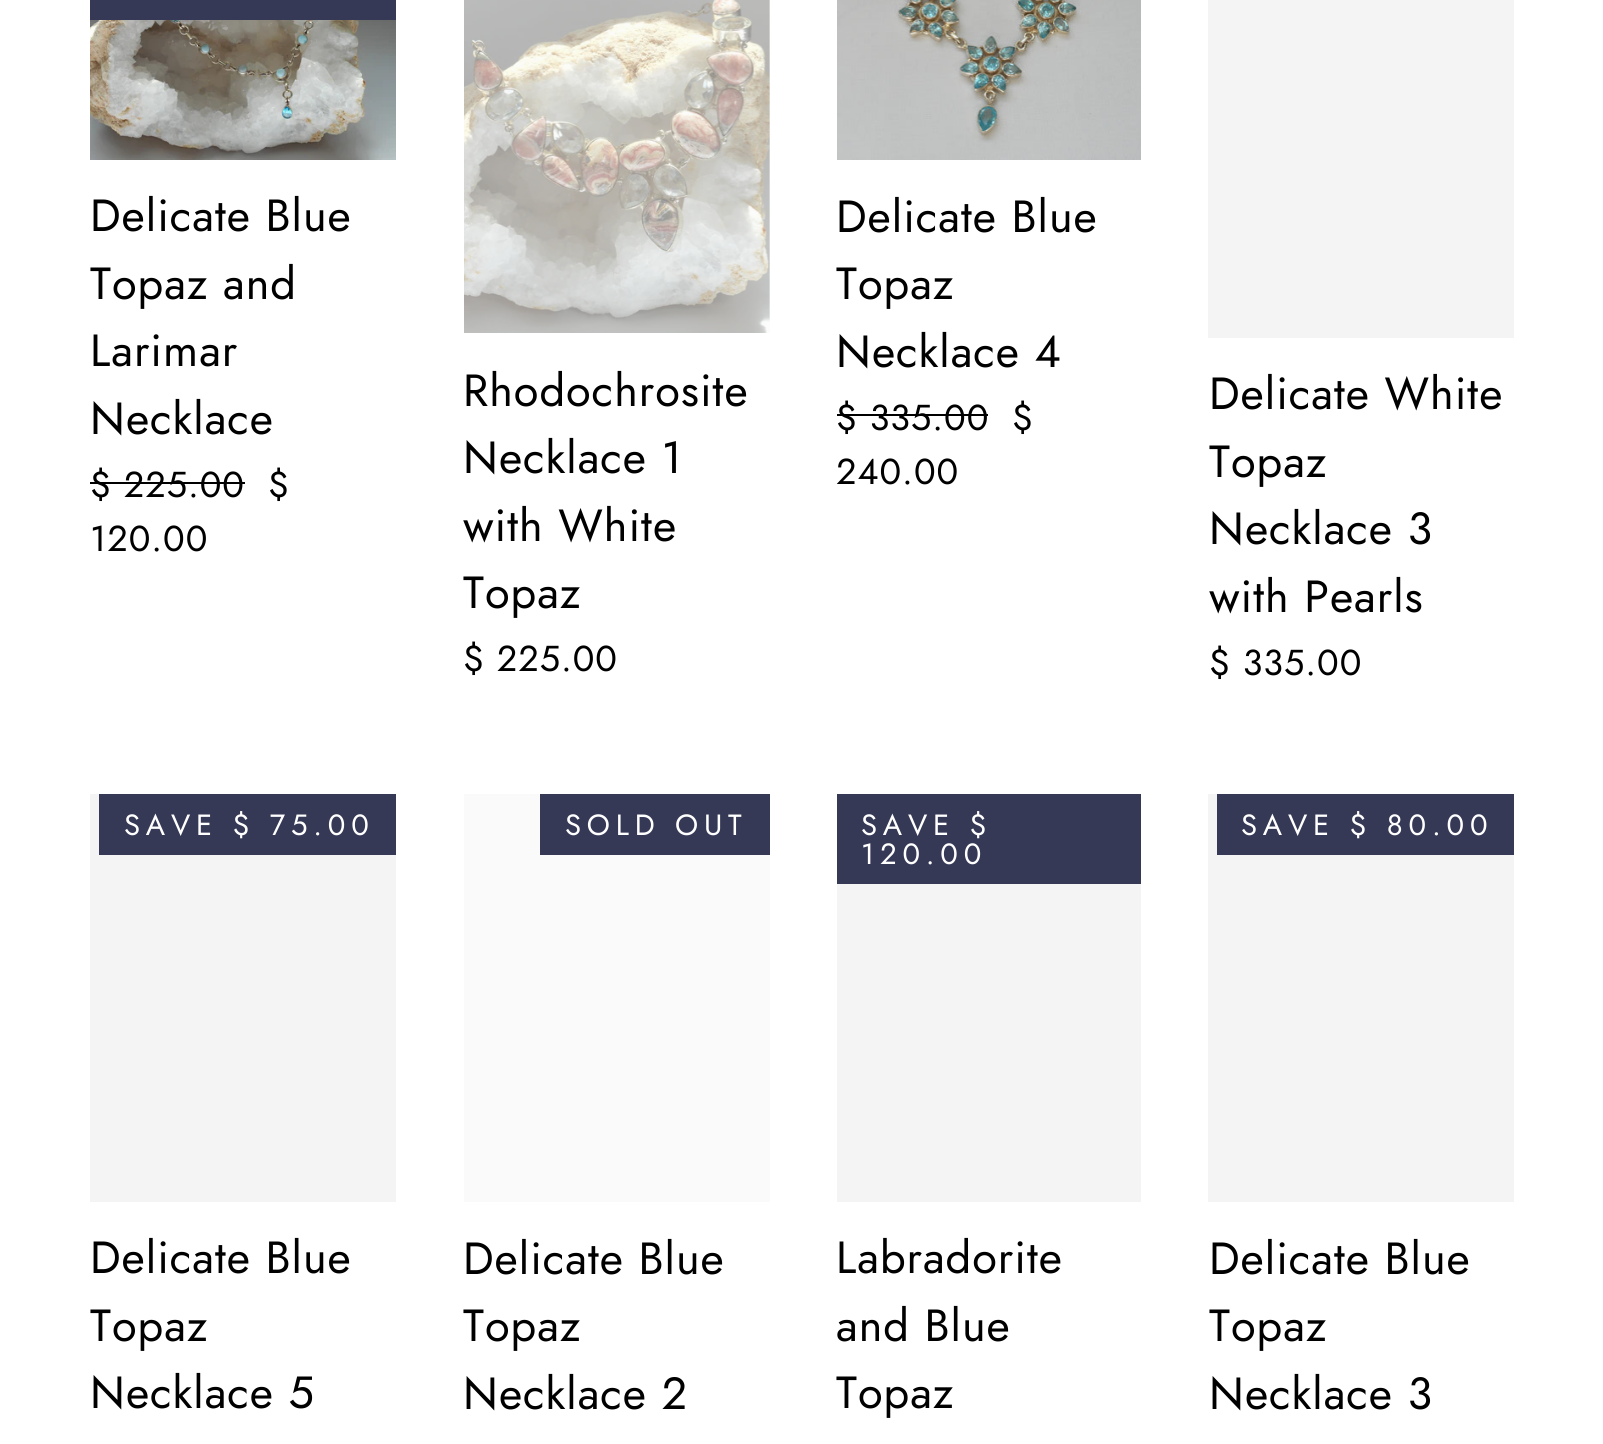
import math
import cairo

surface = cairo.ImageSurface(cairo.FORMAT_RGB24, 1603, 1444)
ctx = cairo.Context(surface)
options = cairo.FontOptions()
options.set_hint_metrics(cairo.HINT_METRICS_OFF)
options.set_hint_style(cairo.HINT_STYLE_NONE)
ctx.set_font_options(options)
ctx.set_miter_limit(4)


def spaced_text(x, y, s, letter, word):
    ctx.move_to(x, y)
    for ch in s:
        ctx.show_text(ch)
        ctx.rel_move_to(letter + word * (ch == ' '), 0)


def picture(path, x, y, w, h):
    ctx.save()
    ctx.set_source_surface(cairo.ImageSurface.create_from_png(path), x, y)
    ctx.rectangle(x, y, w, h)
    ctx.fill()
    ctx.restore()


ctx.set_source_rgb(1, 1, 1)
ctx.paint()
ctx.set_source_rgb(0.208, 0.224, 0.337)
ctx.rectangle(90, 0, 306, 20)
ctx.fill()
picture("img1.png", 90, 20, 306, 140)
ctx.select_font_face("Jost")
ctx.set_font_size(45)
ctx.set_source_rgb(0, 0, 0)
spaced_text(90, 231, "Delicate Blue", 1, 0)
spaced_text(90, 299, "Topaz and", 1, 0)
spaced_text(90, 366, "Larimar", 1, 0)
spaced_text(90, 434, "Necklace", 1, 0)
ctx.set_font_size(36)
spaced_text(90, 497, "$ 225.00", 1, 0)
ctx.rectangle(90, 482, 155, 2)
ctx.fill()
spaced_text(268, 497, "$", 1, 0)
spaced_text(90, 551, "120.00", 1, 0)
picture("img2.png", 837, 0, 304, 160)
ctx.set_font_size(45)
spaced_text(836, 232, "Delicate Blue", 1, 0)
spaced_text(836, 299, "Topaz", 1, 0)
spaced_text(836, 367, "Necklace 4", 1, 0)
ctx.set_font_size(36)
spaced_text(836, 430, "$ 335.00", 1, 0)
ctx.rectangle(837, 414, 151, 2)
ctx.fill()
spaced_text(1012, 430, "$", 1, 0)
spaced_text(836, 484, "240.00", 1, 0)
ctx.set_source_rgb(0.98, 0.98, 0.98)
ctx.rectangle(464, 0, 306, 333)
ctx.fill()
picture("img3.png", 464, 0, 306, 333)
ctx.set_font_size(45)
ctx.set_source_rgb(0, 0, 0)
spaced_text(463, 406, "Rhodochrosite", 1, 0)
spaced_text(463, 473, "Necklace 1", 1, 0)
spaced_text(463, 541, "with White", 1, 0)
spaced_text(463, 608, "Topaz", 1, 0)
ctx.set_font_size(36)
spaced_text(463, 671, "$ 225.00", 1, 0)
ctx.set_source_rgb(0.957, 0.957, 0.957)
ctx.rectangle(1208, 0, 306, 338)
ctx.fill()
ctx.set_font_size(45)
ctx.set_source_rgb(0, 0, 0)
spaced_text(1209, 409, "Delicate White", 1, 0)
spaced_text(1209, 477, "Topaz", 1, 0)
spaced_text(1209, 544, "Necklace 3", 1, 0)
spaced_text(1209, 612, "with Pearls", 1, 0)
ctx.set_font_size(36)
spaced_text(1209, 675, "$ 335.00", 1, 0)
ctx.set_source_rgb(0.957, 0.957, 0.957)
ctx.rectangle(90, 794, 306, 408)
ctx.fill()
ctx.set_source_rgb(0.208, 0.224, 0.337)
ctx.rectangle(99, 794, 297, 61)
ctx.fill()
ctx.set_font_size(29.25)
ctx.set_source_rgb(1, 1, 1)
spaced_text(124, 835, "SAVE $ 75.00", 5.8, 0)
ctx.set_font_size(45)
ctx.set_source_rgb(0, 0, 0)
spaced_text(90, 1273, "Delicate Blue", 1, 0)
spaced_text(90, 1341, "Topaz", 1, 0)
spaced_text(90, 1408, "Necklace 5", 1, 0)
ctx.set_source_rgb(0.98, 0.98, 0.98)
ctx.rectangle(464, 794, 306, 408)
ctx.fill()
ctx.set_source_rgb(0.208, 0.224, 0.337)
ctx.rectangle(540, 794, 230, 61)
ctx.fill()
ctx.set_font_size(29.25)
ctx.set_source_rgb(1, 1, 1)
spaced_text(565, 835, "SOLD OUT", 5.8, 0)
ctx.set_font_size(45)
ctx.set_source_rgb(0, 0, 0)
spaced_text(463, 1274, "Delicate Blue", 1, 0)
spaced_text(463, 1341, "Topaz", 1, 0)
spaced_text(463, 1409, "Necklace 2", 1, 0)
ctx.set_source_rgb(0.208, 0.224, 0.337)
ctx.rectangle(837, 794, 304, 90)
ctx.fill()
ctx.set_font_size(29.25)
ctx.set_source_rgb(1, 1, 1)
spaced_text(861, 835, "SAVE $", 5.8, 0)
spaced_text(861, 864, "120.00", 5.8, 0)
ctx.set_source_rgb(0.957, 0.957, 0.957)
ctx.rectangle(837, 884, 304, 318)
ctx.fill()
ctx.set_font_size(45)
ctx.set_source_rgb(0, 0, 0)
spaced_text(836, 1273, "Labradorite", 1, 0)
spaced_text(836, 1341, "and Blue", 1, 0)
spaced_text(836, 1408, "Topaz", 1, 0)
ctx.set_source_rgb(0.957, 0.957, 0.957)
ctx.rectangle(1208, 794, 306, 408)
ctx.fill()
ctx.set_source_rgb(0.208, 0.224, 0.337)
ctx.rectangle(1217, 794, 297, 61)
ctx.fill()
ctx.set_font_size(29.25)
ctx.set_source_rgb(1, 1, 1)
spaced_text(1241, 835, "SAVE $ 80.00", 5.8, 0)
ctx.set_font_size(45)
ctx.set_source_rgb(0, 0, 0)
spaced_text(1209, 1274, "Delicate Blue", 1, 0)
spaced_text(1209, 1341, "Topaz", 1, 0)
spaced_text(1209, 1409, "Necklace 3", 1, 0)
surface.write_to_png("page.png")
